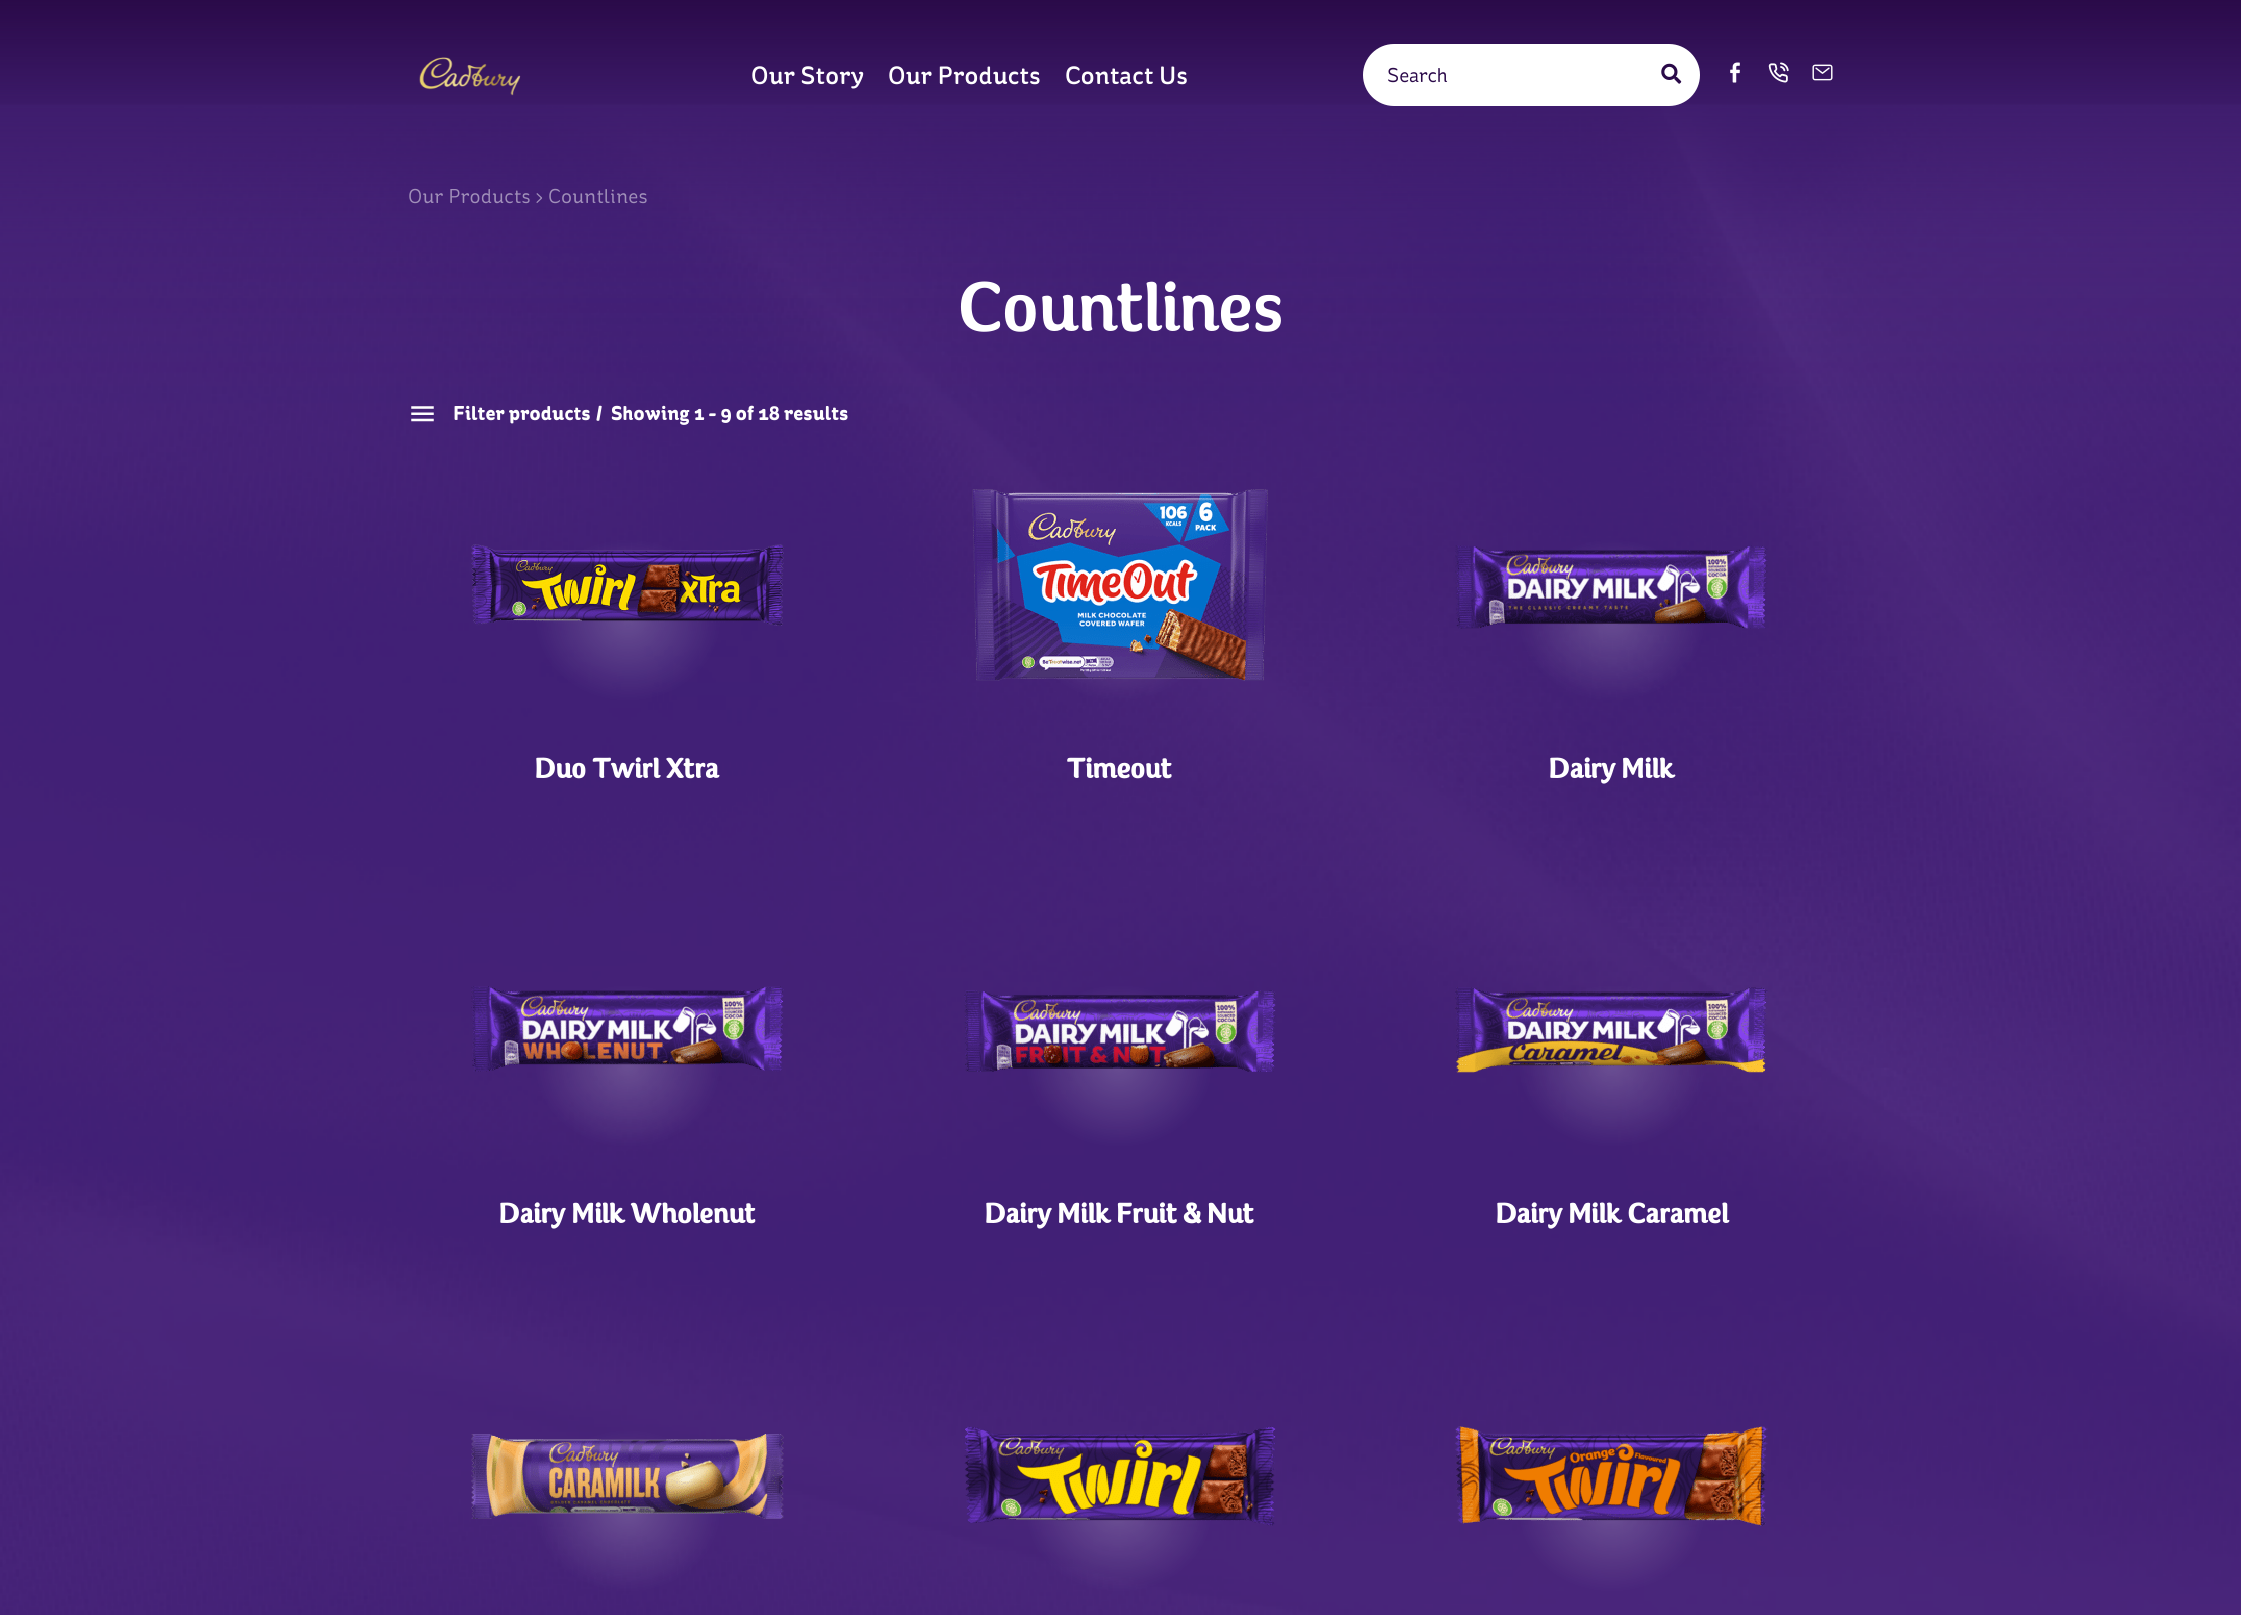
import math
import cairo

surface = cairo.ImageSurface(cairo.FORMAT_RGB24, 2241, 1615)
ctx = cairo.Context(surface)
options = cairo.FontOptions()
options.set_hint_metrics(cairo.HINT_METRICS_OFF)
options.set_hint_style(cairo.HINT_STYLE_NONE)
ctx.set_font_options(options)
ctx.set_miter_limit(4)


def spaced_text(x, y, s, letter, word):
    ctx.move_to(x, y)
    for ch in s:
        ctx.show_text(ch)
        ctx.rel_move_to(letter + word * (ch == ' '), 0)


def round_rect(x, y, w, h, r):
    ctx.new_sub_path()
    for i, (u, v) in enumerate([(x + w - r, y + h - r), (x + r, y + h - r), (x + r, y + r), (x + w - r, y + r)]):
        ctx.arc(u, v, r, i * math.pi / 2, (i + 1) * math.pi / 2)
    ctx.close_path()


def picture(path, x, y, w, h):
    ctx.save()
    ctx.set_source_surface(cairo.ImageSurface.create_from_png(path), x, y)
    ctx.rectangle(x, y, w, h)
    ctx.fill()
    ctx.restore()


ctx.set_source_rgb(0.239, 0.106, 0.42)
ctx.paint()
picture("img6.png", 0, 104, 2241, 1511)
gradient = cairo.LinearGradient(1121, 0, 1121, 113)
gradient.add_color_stop_rgba(0, 0.165, 0.039, 0.286, 1)
gradient.add_color_stop_rgba(1, 0.165, 0.039, 0.286, 0)
ctx.set_source(gradient)
ctx.rectangle(0, 0, 2241, 105)
ctx.fill()
picture("img1.png", 419, 57, 102, 39)
ctx.select_font_face("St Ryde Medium")
ctx.set_font_size(25)
ctx.set_source_rgb(1, 1, 1)
spaced_text(751, 84, "Our Story", 0.2, 0)
spaced_text(888, 84, "Our Products", 0.2, 0)
spaced_text(1065, 84, "Contact Us", 0.2, 0)
round_rect(1363, 44, 337, 62, 31)
ctx.fill()
ctx.select_font_face("St Ryde")
ctx.set_font_size(20)
ctx.set_source_rgb(0.165, 0.039, 0.286)
ctx.move_to(1387, 82)
ctx.show_text("Search")
picture("img2.png", 1661, 63, 21, 21)
picture("img3.png", 1730, 62, 10, 21)
picture("img4.png", 1768, 62, 21, 21)
picture("img5.png", 1812, 64, 21, 17)
ctx.set_source_rgb(0.627, 0.561, 0.725)
spaced_text(408, 203, "Our Products > Countlines", 0.2, 0)
ctx.select_font_face("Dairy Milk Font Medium")
ctx.set_font_size(68.75)
ctx.set_source_rgb(1, 1, 1)
spaced_text(958, 331, "Countlines", 0.2, 0)
picture("img7.png", 411, 406, 23, 16)
ctx.select_font_face("St Ryde", cairo.FONT_SLANT_NORMAL, cairo.FONT_WEIGHT_BOLD)
ctx.set_font_size(20)
spaced_text(453, 420, "Filter products", 0.2, 0)
spaced_text(596, 420, "/", 0.2, 0)
spaced_text(611, 420, "Showing 1 - 9 of 18 results", 0.2, 0)
picture("img8.png", 471, 544, 313, 82)
ctx.select_font_face("Dairy Milk Font", cairo.FONT_SLANT_NORMAL, cairo.FONT_WEIGHT_BOLD)
ctx.set_font_size(27.5)
spaced_text(535, 778, "Duo Twirl Xtra", 0.2, 0)
picture("img9.png", 972, 489, 296, 192)
spaced_text(1067, 778, "Timeout", 0.2, 0)
picture("img10.png", 1455, 545, 313, 84)
spaced_text(1549, 778, "Dairy Milk", 0.2, 0)
picture("img11.png", 471, 986, 313, 86)
spaced_text(499, 1223, "Dairy Milk Wholenut", 0.2, 0)
picture("img12.png", 964, 990, 312, 82)
spaced_text(985, 1223, "Dairy Milk Fruit & Nut", 0.2, 0)
picture("img13.png", 1455, 987, 313, 86)
spaced_text(1496, 1223, "Dairy Milk Caramel", 0.2, 0)
picture("img14.png", 471, 1434, 313, 85)
picture("img15.png", 964, 1426, 312, 100)
picture("img16.png", 1455, 1426, 313, 100)
surface.write_to_png("page.png")
